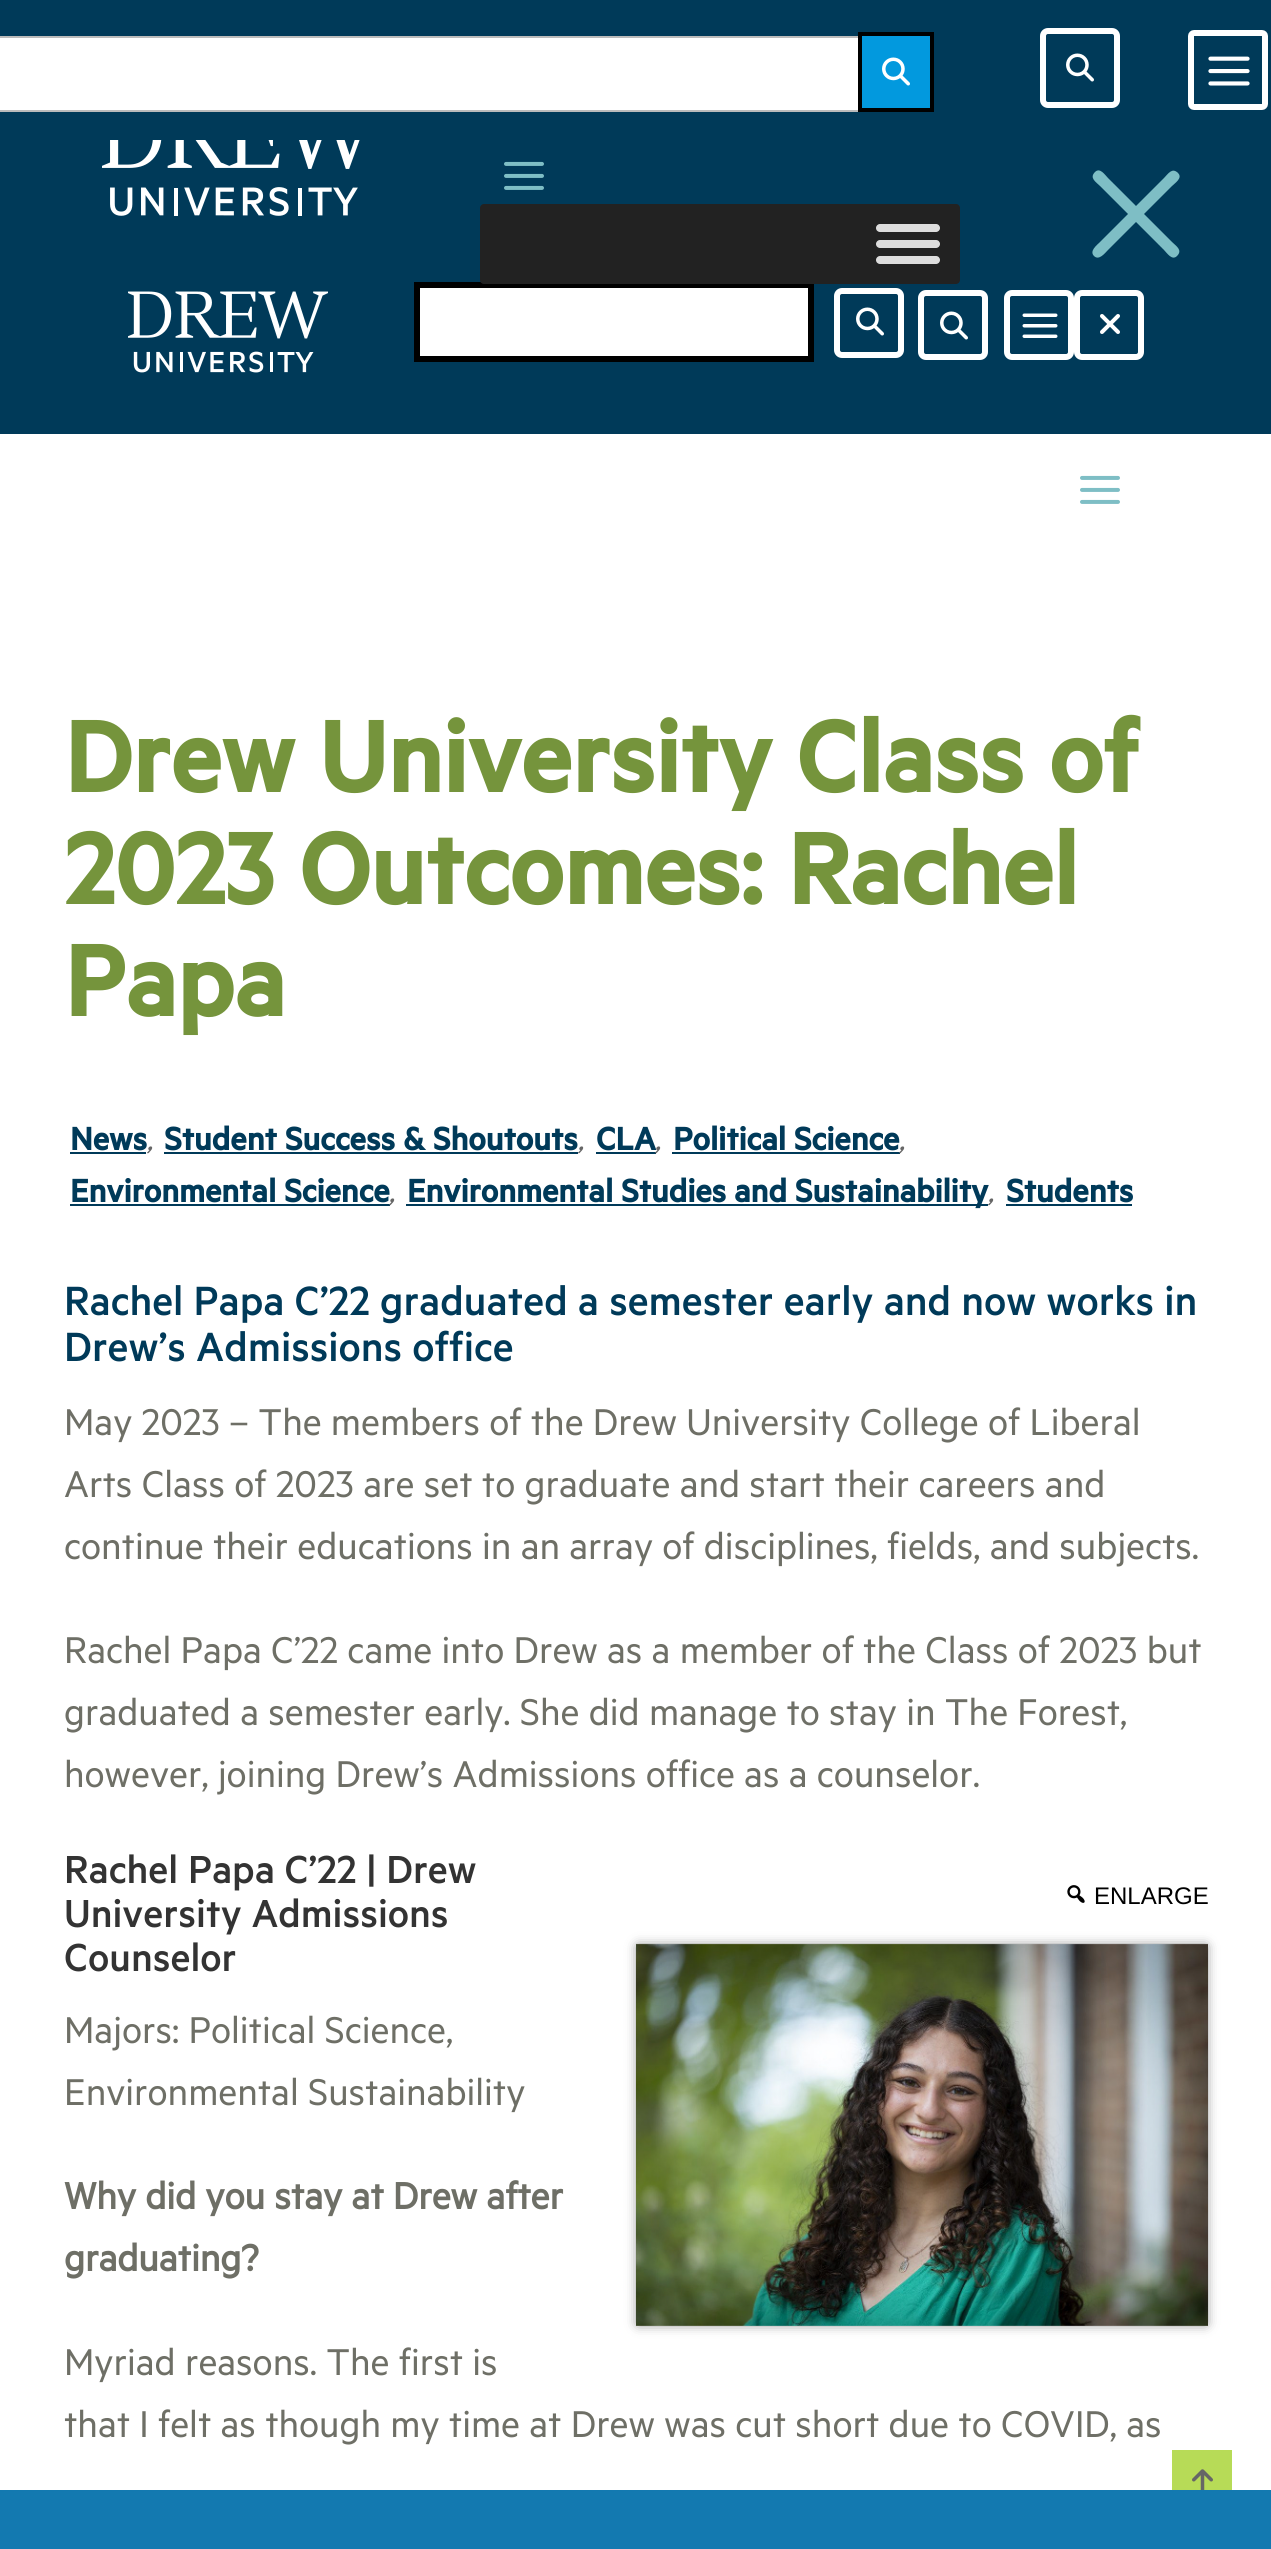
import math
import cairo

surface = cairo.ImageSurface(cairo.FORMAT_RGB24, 1271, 2549)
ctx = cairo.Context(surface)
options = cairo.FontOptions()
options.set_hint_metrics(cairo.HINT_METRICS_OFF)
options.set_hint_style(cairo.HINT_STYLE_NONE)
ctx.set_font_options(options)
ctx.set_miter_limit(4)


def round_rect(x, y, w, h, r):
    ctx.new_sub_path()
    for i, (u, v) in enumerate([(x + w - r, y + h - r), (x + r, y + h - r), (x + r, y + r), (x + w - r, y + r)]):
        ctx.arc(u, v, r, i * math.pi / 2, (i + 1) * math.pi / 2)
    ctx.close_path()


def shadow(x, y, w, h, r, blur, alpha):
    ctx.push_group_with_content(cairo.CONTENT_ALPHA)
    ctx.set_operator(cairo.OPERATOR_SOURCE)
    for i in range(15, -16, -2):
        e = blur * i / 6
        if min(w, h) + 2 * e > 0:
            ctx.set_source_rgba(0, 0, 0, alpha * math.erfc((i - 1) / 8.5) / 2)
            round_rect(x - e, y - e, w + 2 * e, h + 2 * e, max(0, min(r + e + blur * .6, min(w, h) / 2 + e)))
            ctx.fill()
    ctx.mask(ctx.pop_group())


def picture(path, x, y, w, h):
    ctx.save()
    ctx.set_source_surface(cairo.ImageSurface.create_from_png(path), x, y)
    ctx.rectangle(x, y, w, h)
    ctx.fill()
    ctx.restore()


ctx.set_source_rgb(1, 1, 1)
ctx.paint()
ctx.set_source_rgb(0, 0.227, 0.349)
ctx.rectangle(0, 0, 1271, 434)
ctx.fill()
ctx.set_source_rgb(1, 1, 1)
ctx.rectangle(-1, 37, 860, 74)
ctx.fill_preserve()
ctx.set_source_rgb(0.733, 0.733, 0.733)
ctx.stroke()
ctx.set_source_rgba(0.012, 0.663, 0.957, 0.86)
ctx.rectangle(860, 34, 72, 76)
ctx.fill_preserve()
ctx.set_source_rgb(0, 0, 0)
ctx.set_line_width(4)
ctx.stroke()
picture("img1.png", 882, 57, 28, 29)
round_rect(1043, 31, 74, 74, 5)
ctx.set_source_rgb(1, 1, 1)
ctx.set_line_width(6)
ctx.stroke()
picture("img2.png", 1066, 53, 28, 29)
round_rect(1191, 33, 74, 74, 3)
ctx.stroke()
picture("img3.png", 1208, 56, 42, 30)
ctx.set_source_rgb(0.494, 0.745, 0.773)
ctx.new_path()
ctx.move_to(1094, 256)
ctx.curve_to(1099, 261, 1105, 253, 1108, 250)
ctx.line_to(1136, 222)
ctx.line_to(1164, 250)
ctx.curve_to(1167, 253, 1172, 261, 1177, 256)
ctx.curve_to(1183, 250, 1176, 246, 1172, 242)
ctx.line_to(1144, 214)
ctx.line_to(1172, 186)
ctx.curve_to(1175, 183, 1183, 178, 1178, 173)
ctx.curve_to(1172, 167, 1168, 174, 1164, 178)
ctx.line_to(1136, 206)
ctx.line_to(1108, 178)
ctx.curve_to(1105, 175, 1100, 167, 1095, 172)
ctx.curve_to(1089, 178, 1096, 182, 1100, 186)
ctx.line_to(1128, 214)
ctx.line_to(1100, 242)
ctx.curve_to(1097, 245, 1089, 251, 1094, 256)
ctx.close_path()
ctx.fill()
picture("img4.png", 102, 140, 258, 76)
picture("img5.png", 504, 161, 40, 29)
ctx.set_source_rgb(1, 1, 1)
ctx.rectangle(417, 285, 394, 74)
ctx.fill_preserve()
ctx.set_source_rgb(0, 0, 0)
ctx.stroke()
ctx.set_source_rgb(0.133, 0.133, 0.133)
round_rect(480, 204, 480, 80, 4)
ctx.fill()
ctx.set_source_rgb(0.867, 0.867, 0.867)
round_rect(876, 224, 64, 8, 4)
ctx.fill()
round_rect(876, 240, 64, 8, 4)
ctx.fill()
round_rect(876, 256, 64, 8, 4)
ctx.fill()
picture("img6.png", 128, 291, 200, 82)
round_rect(837, 291, 64, 64, 5)
ctx.set_source_rgb(1, 1, 1)
ctx.stroke()
picture("img2.png", 856, 307, 28, 29)
round_rect(921, 293, 64, 64, 5)
ctx.stroke()
picture("img2.png", 940, 311, 28, 29)
round_rect(1007, 293, 64, 64, 5)
ctx.stroke()
picture("img7.png", 1022, 313, 36, 25)
round_rect(1077, 293, 64, 64, 5)
ctx.stroke()
picture("img8.png", 1100, 314, 20, 20)
picture("img9.png", 1080, 475, 40, 29)
ctx.select_font_face("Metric", cairo.FONT_SLANT_NORMAL, cairo.FONT_WEIGHT_BOLD)
ctx.set_font_size(112)
ctx.set_source_rgb(0.459, 0.58, 0.235)
ctx.move_to(64, 792)
ctx.show_text("Drew University Class of")
ctx.move_to(64, 904)
ctx.show_text("2023 Outcomes: Rachel")
ctx.move_to(64, 1016)
ctx.show_text("Papa")
ctx.set_font_size(36)
ctx.set_source_rgb(0, 0.227, 0.349)
ctx.move_to(70, 1150)
ctx.show_text("News")
ctx.rectangle(70, 1152, 76, 2)
ctx.fill()
ctx.select_font_face("Metric Medium", cairo.FONT_SLANT_ITALIC)
ctx.set_font_size(28)
ctx.set_source_rgb(0.4, 0.4, 0.4)
ctx.move_to(147, 1150)
ctx.show_text(",")
ctx.select_font_face("Metric", cairo.FONT_SLANT_NORMAL, cairo.FONT_WEIGHT_BOLD)
ctx.set_font_size(36)
ctx.set_source_rgb(0, 0.227, 0.349)
ctx.move_to(164, 1150)
ctx.show_text("Student Success & Shoutouts")
ctx.rectangle(164, 1152, 414, 2)
ctx.fill()
ctx.select_font_face("Metric Medium", cairo.FONT_SLANT_ITALIC)
ctx.set_font_size(28)
ctx.set_source_rgb(0.4, 0.4, 0.4)
ctx.move_to(578, 1150)
ctx.show_text(",")
ctx.select_font_face("Metric", cairo.FONT_SLANT_NORMAL, cairo.FONT_WEIGHT_BOLD)
ctx.set_font_size(36)
ctx.set_source_rgb(0, 0.227, 0.349)
ctx.move_to(596, 1150)
ctx.show_text("CLA")
ctx.rectangle(596, 1152, 60, 2)
ctx.fill()
ctx.select_font_face("Metric Medium", cairo.FONT_SLANT_ITALIC)
ctx.set_font_size(28)
ctx.set_source_rgb(0.4, 0.4, 0.4)
ctx.move_to(655, 1150)
ctx.show_text(",")
ctx.select_font_face("Metric", cairo.FONT_SLANT_NORMAL, cairo.FONT_WEIGHT_BOLD)
ctx.set_font_size(36)
ctx.set_source_rgb(0, 0.227, 0.349)
ctx.move_to(673, 1150)
ctx.show_text("Political Science")
ctx.rectangle(672, 1152, 228, 2)
ctx.fill()
ctx.select_font_face("Metric Medium", cairo.FONT_SLANT_ITALIC)
ctx.set_font_size(28)
ctx.set_source_rgb(0.4, 0.4, 0.4)
ctx.move_to(899, 1150)
ctx.show_text(",")
ctx.select_font_face("Metric", cairo.FONT_SLANT_NORMAL, cairo.FONT_WEIGHT_BOLD)
ctx.set_font_size(36)
ctx.set_source_rgb(0, 0.227, 0.349)
ctx.move_to(70, 1202)
ctx.show_text("Environmental Science")
ctx.rectangle(70, 1204, 320, 2)
ctx.fill()
ctx.select_font_face("Metric Medium", cairo.FONT_SLANT_ITALIC)
ctx.set_font_size(28)
ctx.set_source_rgb(0.4, 0.4, 0.4)
ctx.move_to(389, 1202)
ctx.show_text(",")
ctx.set_source_rgb(0, 0.227, 0.349)
ctx.rectangle(406, 1204, 582, 2)
ctx.fill()
ctx.select_font_face("Metric", cairo.FONT_SLANT_NORMAL, cairo.FONT_WEIGHT_BOLD)
ctx.set_font_size(36)
ctx.move_to(407, 1202)
ctx.show_text("Environmental Studies and Sustainability")
ctx.select_font_face("Metric Medium", cairo.FONT_SLANT_ITALIC)
ctx.set_font_size(28)
ctx.set_source_rgb(0.4, 0.4, 0.4)
ctx.move_to(988, 1202)
ctx.show_text(",")
ctx.select_font_face("Metric", cairo.FONT_SLANT_NORMAL, cairo.FONT_WEIGHT_BOLD)
ctx.set_font_size(36)
ctx.set_source_rgb(0, 0.227, 0.349)
ctx.move_to(1006, 1202)
ctx.show_text("Students")
ctx.rectangle(1006, 1204, 126, 2)
ctx.fill()
ctx.select_font_face("Metric Medium")
ctx.set_font_size(46)
ctx.move_to(64, 1315)
ctx.show_text("Rachel Papa C’22 graduated a semester early and now works in")
ctx.move_to(64, 1361)
ctx.show_text("Drew’s Admissions office")
ctx.select_font_face("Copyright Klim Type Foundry")
ctx.set_font_size(42)
ctx.set_source_rgb(0.431, 0.435, 0.4)
ctx.move_to(64, 1435)
ctx.show_text("May 2023 – The members of the Drew University College of Liberal")
ctx.move_to(64, 1497)
ctx.show_text("Arts Class of 2023 are set to graduate and start their careers and")
ctx.move_to(64, 1559)
ctx.show_text("continue their educations in an array of disciplines, fields, and subjects.")
ctx.move_to(64, 1663)
ctx.show_text("Rachel Papa C’22 came into Drew as a member of the Class of 2023 but")
ctx.move_to(64, 1725)
ctx.show_text("graduated a semester early. She did manage to stay in The Forest,")
ctx.move_to(64, 1787)
ctx.show_text("however, joining Drew’s Admissions office as a counselor.")
ctx.select_font_face("Metric Medium")
ctx.set_font_size(44)
ctx.set_source_rgb(0.2, 0.2, 0.2)
ctx.move_to(64, 1883)
ctx.show_text("Rachel Papa C’22 | Drew")
ctx.move_to(64, 1927)
ctx.show_text("University Admissions")
ctx.move_to(64, 1971)
ctx.show_text("Counselor")
picture("img10.png", 1067, 1885, 18, 18)
ctx.select_font_face("Liberation Sans")
ctx.set_font_size(24)
ctx.set_source_rgb(0, 0, 0)
ctx.move_to(1094, 1904)
ctx.show_text("ENLARGE")
ctx.set_source_rgb(0, 0, 0)
shadow(638, 1946, 568, 378, 0, 6, 0.5)
picture("img11.png", 636, 1943, 572, 383)
ctx.select_font_face("Copyright Klim Type Foundry")
ctx.set_font_size(42)
ctx.set_source_rgb(0.431, 0.435, 0.4)
ctx.move_to(64, 2043)
ctx.show_text("Majors: Political Science,")
ctx.move_to(64, 2105)
ctx.show_text("Environmental Sustainability")
ctx.select_font_face("Copyright Klim Type Foundry", cairo.FONT_SLANT_NORMAL, cairo.FONT_WEIGHT_BOLD)
ctx.move_to(64, 2209)
ctx.show_text("Why did you stay at Drew after")
ctx.move_to(64, 2271)
ctx.show_text("graduating?")
ctx.select_font_face("Copyright Klim Type Foundry")
ctx.move_to(64, 2375)
ctx.show_text("Myriad reasons. The first is")
ctx.move_to(64, 2437)
ctx.show_text("that I felt as though my time at Drew was cut short due to COVID, as")
ctx.set_source_rgb(0.718, 0.859, 0.341)
ctx.rectangle(1172, 2450, 60, 40)
ctx.fill()
picture("img12.png", 1192, 2469, 21, 21)
ctx.set_source_rgb(0.075, 0.475, 0.69)
ctx.rectangle(0, 2490, 1271, 59)
ctx.fill()
surface.write_to_png("page.png")
